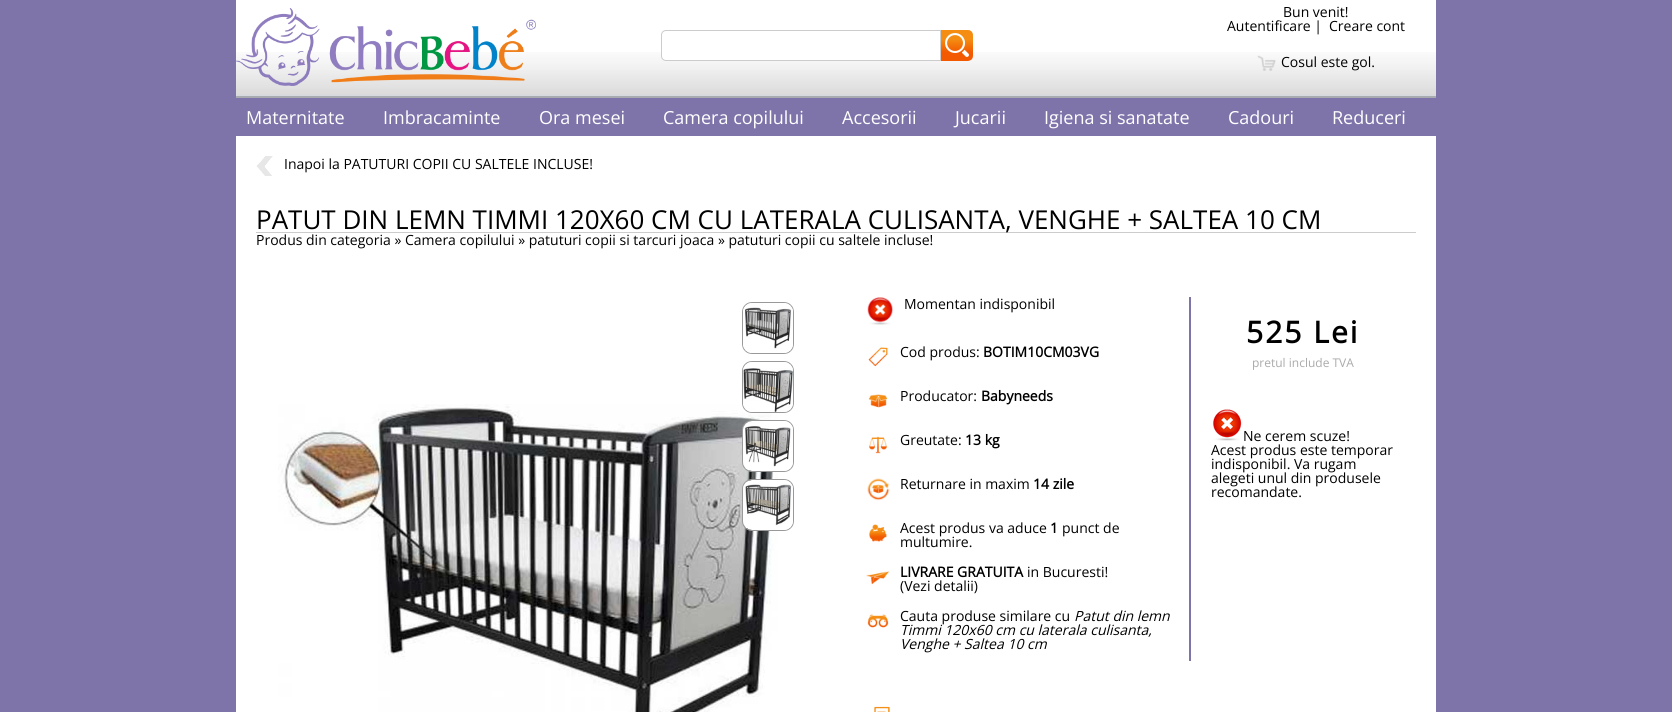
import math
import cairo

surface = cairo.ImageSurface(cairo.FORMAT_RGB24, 1672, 712)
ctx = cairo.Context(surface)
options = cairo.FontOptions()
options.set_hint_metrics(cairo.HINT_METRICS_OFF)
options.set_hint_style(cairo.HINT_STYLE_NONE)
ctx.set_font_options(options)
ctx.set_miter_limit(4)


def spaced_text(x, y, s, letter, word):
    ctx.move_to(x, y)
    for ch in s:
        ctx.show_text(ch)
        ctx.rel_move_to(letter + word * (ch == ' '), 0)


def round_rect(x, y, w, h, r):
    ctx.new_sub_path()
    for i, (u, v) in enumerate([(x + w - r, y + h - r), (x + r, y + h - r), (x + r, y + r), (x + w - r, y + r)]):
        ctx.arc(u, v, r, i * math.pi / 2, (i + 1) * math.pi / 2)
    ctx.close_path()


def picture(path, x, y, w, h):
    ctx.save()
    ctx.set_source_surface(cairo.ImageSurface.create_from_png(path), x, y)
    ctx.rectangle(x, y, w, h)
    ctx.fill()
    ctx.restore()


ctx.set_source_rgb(0.494, 0.455, 0.667)
ctx.paint()
ctx.set_source_rgb(1, 1, 1)
ctx.rectangle(236, 0, 1200, 52)
ctx.fill()
picture("img1.png", 236, 52, 1200, 46)
picture("img2.png", 236, 8, 300, 78)
ctx.new_path()
ctx.move_to(666, 30.5)
ctx.line_to(940.5, 30.5)
ctx.line_to(940.5, 60.5)
ctx.line_to(666, 60.5)
ctx.curve_to(663.5, 60.5, 661.5, 58.5, 661.5, 56)
ctx.line_to(661.5, 35)
ctx.curve_to(661.5, 32.5, 663.5, 30.5, 666, 30.5)
ctx.close_path()
ctx.fill_preserve()
ctx.set_source_rgb(0.8, 0.8, 0.8)
ctx.set_line_width(1)
ctx.stroke()
picture("img3.png", 941, 30, 32, 31)
ctx.select_font_face("Open Sans")
ctx.set_font_size(14)
ctx.set_source_rgb(0, 0, 0)
ctx.move_to(1283, 17)
ctx.show_text("Bun venit!")
ctx.move_to(1227, 31)
ctx.show_text("Autentificare |")
ctx.move_to(1329, 31)
ctx.show_text("Creare cont")
picture("img4.png", 1257, 55, 19, 16)
ctx.move_to(1281, 67)
ctx.show_text("Cosul este gol.")
ctx.set_font_size(18)
ctx.set_source_rgb(1, 1, 1)
ctx.move_to(246, 124)
ctx.show_text("Maternitate")
ctx.move_to(383, 124)
ctx.show_text("Imbracaminte")
ctx.move_to(539, 124)
ctx.show_text("Ora mesei")
ctx.move_to(663, 124)
ctx.show_text("Camera copilului")
ctx.move_to(842, 124)
ctx.show_text("Accesorii")
ctx.move_to(955, 124)
ctx.show_text("Jucarii")
ctx.move_to(1044, 124)
ctx.show_text("Igiena si sanatate")
ctx.move_to(1228, 124)
ctx.show_text("Cadouri")
ctx.move_to(1332, 124)
ctx.show_text("Reduceri")
ctx.rectangle(236, 136, 1200, 576)
ctx.fill()
picture("img5.png", 256, 156, 17, 20)
ctx.set_font_size(14)
ctx.set_source_rgb(0, 0, 0)
ctx.move_to(284, 169)
ctx.show_text("Inapoi la PATUTURI COPII CU SALTELE INCLUSE!")
ctx.set_source_rgb(0.8, 0.8, 0.8)
ctx.rectangle(256, 232, 1160, 1)
ctx.fill()
ctx.set_font_size(26)
ctx.set_source_rgb(0, 0, 0)
ctx.move_to(256, 229)
ctx.show_text("PATUT DIN LEMN TIMMI 120X60 CM CU LATERALA CULISANTA, VENGHE + SALTEA 10 CM")
ctx.set_font_size(14)
ctx.move_to(256, 245)
ctx.show_text("Produs din categoria » Camera copilului » patuturi copii si tarcuri joaca » patuturi copii cu saltele incluse!")
round_rect(742.5, 302.5, 51, 51, 9.5)
ctx.set_source_rgb(0.6, 0.6, 0.6)
ctx.stroke()
picture("img6.png", 743, 303, 50, 50)
picture("img10.png", 278, 404, 500, 308)
round_rect(742.5, 361.5, 51, 51, 9.5)
ctx.stroke()
picture("img7.png", 743, 362, 50, 50)
round_rect(742.5, 420.5, 51, 51, 9.5)
ctx.stroke()
picture("img8.png", 743, 421, 50, 50)
round_rect(742.5, 479.5, 51, 51, 9.5)
ctx.stroke()
picture("img9.png", 743, 480, 50, 50)
ctx.set_source_rgb(0.494, 0.455, 0.667)
ctx.rectangle(1189, 297, 2, 364)
ctx.fill()
picture("img11.png", 867, 297, 26, 28)
ctx.set_source_rgb(0, 0, 0)
ctx.move_to(904, 309)
ctx.show_text("Momentan indisponibil")
picture("img12.png", 868, 347, 20, 20)
ctx.move_to(900, 357)
ctx.show_text("Cod produs:")
ctx.select_font_face("Open Sans", cairo.FONT_SLANT_NORMAL, cairo.FONT_WEIGHT_BOLD)
ctx.move_to(983, 357)
ctx.show_text("BOTIM10CM03VG")
picture("img13.png", 868, 394, 20, 14)
ctx.select_font_face("Open Sans")
ctx.move_to(900, 401)
ctx.show_text("Producator:")
ctx.select_font_face("Open Sans", cairo.FONT_SLANT_NORMAL, cairo.FONT_WEIGHT_BOLD)
ctx.move_to(981, 401)
ctx.show_text("Babyneeds")
picture("img14.png", 869, 436, 18, 18)
ctx.select_font_face("Open Sans")
ctx.move_to(900, 445)
ctx.show_text("Greutate:")
ctx.select_font_face("Open Sans", cairo.FONT_SLANT_NORMAL, cairo.FONT_WEIGHT_BOLD)
ctx.move_to(965, 445)
ctx.show_text("13 kg")
picture("img15.png", 867, 478, 23, 23)
ctx.select_font_face("Open Sans")
ctx.move_to(900, 489)
ctx.show_text("Returnare in maxim")
ctx.select_font_face("Open Sans", cairo.FONT_SLANT_NORMAL, cairo.FONT_WEIGHT_BOLD)
ctx.move_to(1033, 489)
ctx.show_text("14 zile")
picture("img16.png", 869, 524, 18, 18)
ctx.select_font_face("Open Sans")
ctx.move_to(900, 533)
ctx.show_text("Acest produs va aduce")
ctx.select_font_face("Open Sans", cairo.FONT_SLANT_NORMAL, cairo.FONT_WEIGHT_BOLD)
ctx.move_to(1050, 533)
ctx.show_text("1")
ctx.select_font_face("Open Sans")
ctx.move_to(1062, 533)
ctx.show_text("punct de")
ctx.move_to(900, 547)
ctx.show_text("multumire.")
picture("img17.png", 866, 571, 24, 14)
ctx.select_font_face("Open Sans", cairo.FONT_SLANT_NORMAL, cairo.FONT_WEIGHT_BOLD)
ctx.move_to(900, 577)
ctx.show_text("LIVRARE GRATUITA")
ctx.select_font_face("Open Sans")
ctx.move_to(1027, 577)
ctx.show_text("in Bucuresti!")
ctx.move_to(900, 591)
ctx.show_text("(Vezi detalii)")
picture("img18.png", 867, 614, 22, 14)
ctx.move_to(900, 621)
ctx.show_text("Cauta produse similare cu")
ctx.select_font_face("Open Sans", cairo.FONT_SLANT_ITALIC)
ctx.move_to(1074, 621)
ctx.show_text("Patut din lemn")
ctx.move_to(900, 635)
ctx.show_text("Timmi 120x60 cm cu laterala culisanta,")
ctx.move_to(900, 649)
ctx.show_text("Venghe + Saltea 10 cm")
ctx.select_font_face("Open Sans", cairo.FONT_SLANT_NORMAL, cairo.FONT_WEIGHT_BOLD)
ctx.set_font_size(30)
spaced_text(1246, 343, "525 Lei", 2, 0)
ctx.select_font_face("Open Sans")
ctx.set_font_size(12)
ctx.set_source_rgb(0.667, 0.667, 0.667)
ctx.move_to(1252, 367)
ctx.show_text("pretul include TVA")
picture("img19.png", 1213, 409, 29, 32)
ctx.set_font_size(14)
ctx.set_source_rgb(0, 0, 0)
ctx.move_to(1243, 441)
ctx.show_text("Ne cerem scuze!")
ctx.move_to(1211, 455)
ctx.show_text("Acest produs este temporar")
ctx.move_to(1211, 469)
ctx.show_text("indisponibil. Va rugam")
ctx.move_to(1211, 483)
ctx.show_text("alegeti unul din produsele")
ctx.move_to(1211, 497)
ctx.show_text("recomandate.")
picture("img20.png", 874, 706, 16, 6)
surface.write_to_png("page.png")
